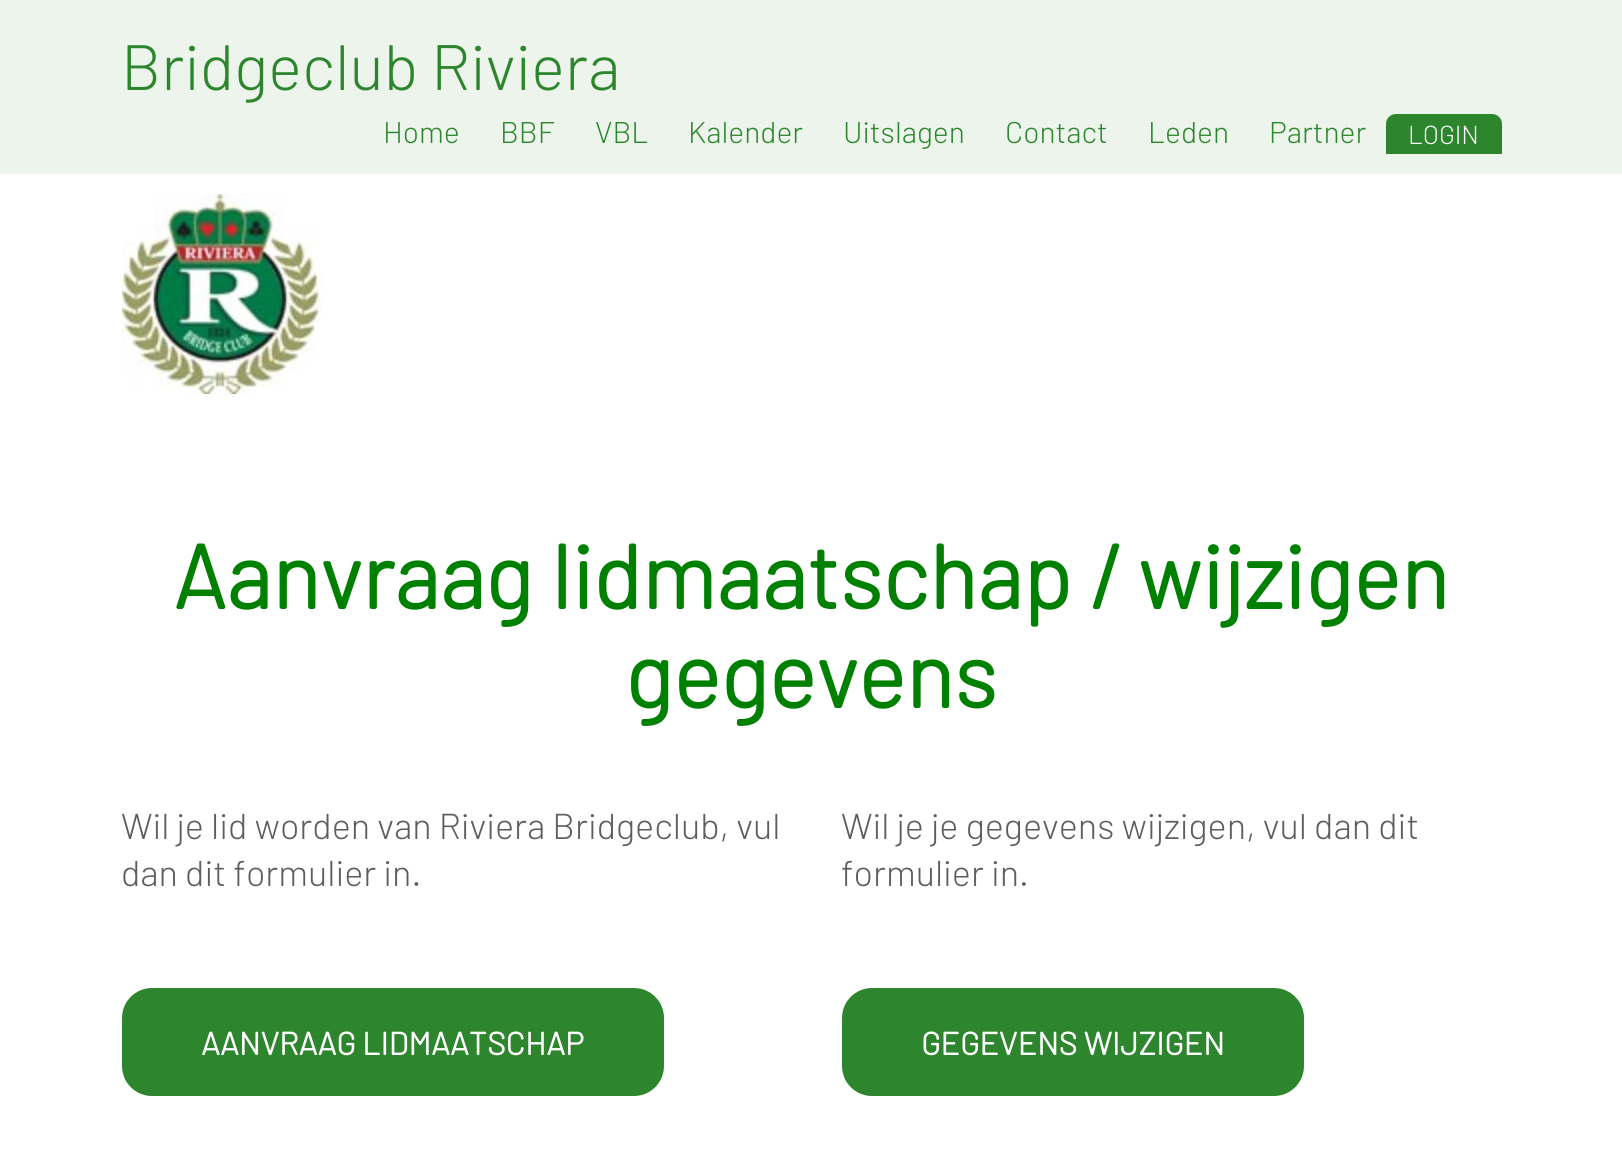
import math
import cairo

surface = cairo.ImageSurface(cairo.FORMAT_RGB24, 1622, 1161)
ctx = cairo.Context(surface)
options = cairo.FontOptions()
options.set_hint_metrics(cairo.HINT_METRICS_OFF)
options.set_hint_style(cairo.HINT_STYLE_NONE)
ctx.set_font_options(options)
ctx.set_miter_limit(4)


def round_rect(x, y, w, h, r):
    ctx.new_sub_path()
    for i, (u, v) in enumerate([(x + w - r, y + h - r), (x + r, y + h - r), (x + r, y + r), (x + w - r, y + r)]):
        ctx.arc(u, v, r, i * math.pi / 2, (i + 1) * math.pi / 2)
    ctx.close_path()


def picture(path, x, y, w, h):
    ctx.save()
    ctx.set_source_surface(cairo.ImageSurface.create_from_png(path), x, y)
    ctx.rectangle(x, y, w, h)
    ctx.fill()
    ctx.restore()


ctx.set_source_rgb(1, 1, 1)
ctx.paint()
ctx.set_source_rgb(0.922, 0.957, 0.922)
ctx.rectangle(0, 0, 1622, 174)
ctx.fill()
ctx.select_font_face("Barlow Light")
ctx.set_font_size(64)
ctx.set_source_rgb(0.176, 0.525, 0.176)
ctx.move_to(121, 90)
ctx.show_text("Bridgeclub Riviera")
ctx.set_font_size(30)
ctx.move_to(383, 143)
ctx.show_text("Home")
ctx.move_to(500, 143)
ctx.show_text("BBF")
ctx.move_to(595, 143)
ctx.show_text("VBL")
ctx.move_to(688, 143)
ctx.show_text("Kalender")
ctx.move_to(843, 143)
ctx.show_text("Uitslagen")
ctx.move_to(1005, 143)
ctx.show_text("Contact")
ctx.move_to(1148, 143)
ctx.show_text("Leden")
ctx.move_to(1269, 143)
ctx.show_text("Partner")
ctx.new_path()
ctx.move_to(1396, 115)
ctx.line_to(1492, 115)
ctx.curve_to(1497, 115, 1501, 119, 1501, 124)
ctx.line_to(1501, 153)
ctx.line_to(1387, 153)
ctx.line_to(1387, 124)
ctx.curve_to(1387, 119, 1391, 115, 1396, 115)
ctx.close_path()
ctx.fill_preserve()
ctx.stroke()
ctx.set_font_size(26)
ctx.set_source_rgb(1, 1, 1)
ctx.move_to(1408, 144)
ctx.show_text("LOGIN")
picture("img1.png", 122, 194, 200, 200)
ctx.select_font_face("Barlow", cairo.FONT_SLANT_NORMAL, cairo.FONT_WEIGHT_BOLD)
ctx.set_font_size(90)
ctx.set_source_rgb(0, 0.502, 0)
ctx.move_to(173, 609)
ctx.show_text("Aanvraag lidmaatschap / wijzigen")
ctx.move_to(625, 708)
ctx.show_text("gegevens")
ctx.select_font_face("Barlow Light")
ctx.set_font_size(36)
ctx.set_source_rgb(0.369, 0.369, 0.369)
ctx.move_to(121, 839)
ctx.show_text("Wil je lid worden van Riviera Bridgeclub, vul")
ctx.move_to(121, 886)
ctx.show_text("dan dit formulier in.")
ctx.set_source_rgb(0.176, 0.525, 0.176)
round_rect(122, 988, 542, 108, 30)
ctx.fill()
ctx.select_font_face("Barlow", cairo.FONT_SLANT_NORMAL, cairo.FONT_WEIGHT_BOLD)
ctx.set_font_size(32)
ctx.set_source_rgb(1, 1, 1)
ctx.move_to(201, 1055)
ctx.show_text("AANVRAAG LIDMAATSCHAP")
ctx.select_font_face("Barlow Light")
ctx.set_font_size(36)
ctx.set_source_rgb(0.369, 0.369, 0.369)
ctx.move_to(841, 839)
ctx.show_text("Wil je je gegevens wijzigen, vul dan dit")
ctx.move_to(841, 886)
ctx.show_text("formulier in.")
ctx.set_source_rgb(0.176, 0.525, 0.176)
round_rect(842, 988, 462, 108, 30)
ctx.fill()
ctx.select_font_face("Barlow", cairo.FONT_SLANT_NORMAL, cairo.FONT_WEIGHT_BOLD)
ctx.set_font_size(32)
ctx.set_source_rgb(1, 1, 1)
ctx.move_to(921, 1055)
ctx.show_text("GEGEVENS WIJZIGEN")
surface.write_to_png("page.png")
